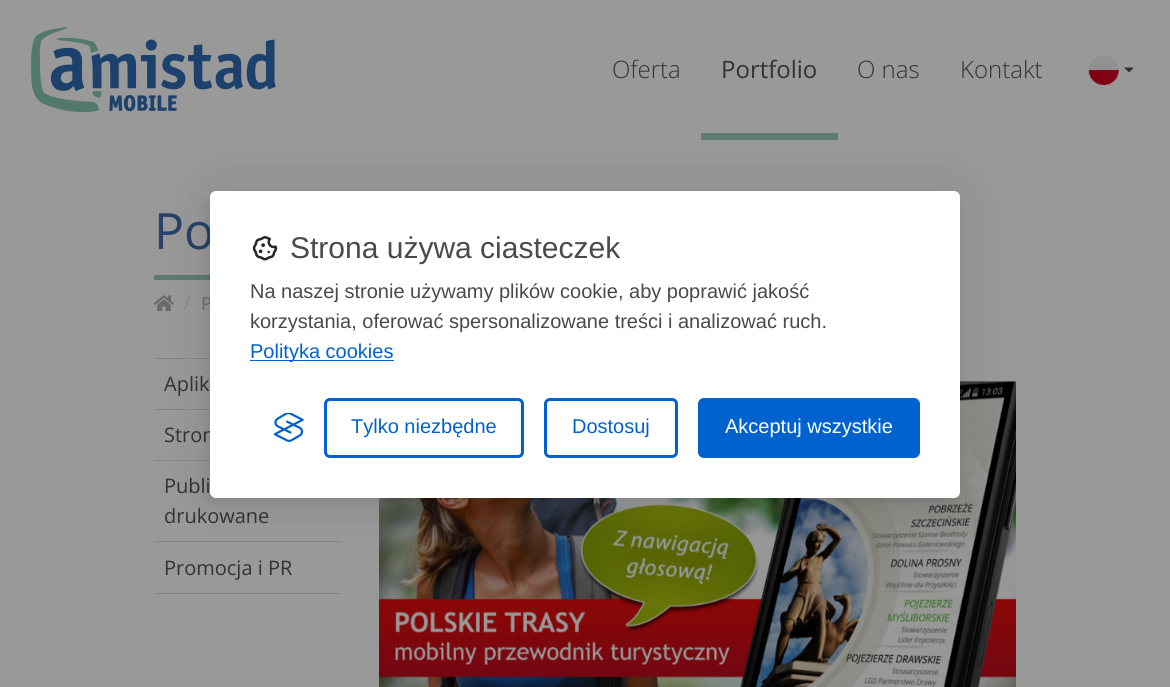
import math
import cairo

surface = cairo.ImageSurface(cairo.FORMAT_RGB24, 1170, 687)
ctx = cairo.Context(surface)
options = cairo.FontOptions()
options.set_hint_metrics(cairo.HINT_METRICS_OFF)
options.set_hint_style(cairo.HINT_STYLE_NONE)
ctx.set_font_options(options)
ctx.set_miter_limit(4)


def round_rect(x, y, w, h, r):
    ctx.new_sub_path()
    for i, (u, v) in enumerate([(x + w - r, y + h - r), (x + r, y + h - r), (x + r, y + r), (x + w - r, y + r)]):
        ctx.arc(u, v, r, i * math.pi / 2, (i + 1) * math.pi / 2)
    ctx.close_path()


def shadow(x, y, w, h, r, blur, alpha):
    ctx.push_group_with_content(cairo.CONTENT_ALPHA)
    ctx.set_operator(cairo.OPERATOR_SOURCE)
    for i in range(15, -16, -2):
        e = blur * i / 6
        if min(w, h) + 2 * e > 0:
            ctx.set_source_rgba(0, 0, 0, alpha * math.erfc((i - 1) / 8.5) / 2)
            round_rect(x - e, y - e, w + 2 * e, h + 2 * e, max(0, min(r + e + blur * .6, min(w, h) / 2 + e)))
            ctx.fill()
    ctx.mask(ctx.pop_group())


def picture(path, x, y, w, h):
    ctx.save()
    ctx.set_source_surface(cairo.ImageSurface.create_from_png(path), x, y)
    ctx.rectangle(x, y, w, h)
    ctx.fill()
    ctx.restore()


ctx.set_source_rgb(0.6, 0.6, 0.6)
ctx.paint()
picture("img1.png", 31, 27, 245, 86)
ctx.select_font_face("Open Sans Light")
ctx.set_font_size(24)
ctx.set_source_rgb(0.2, 0.2, 0.2)
ctx.move_to(612, 78)
ctx.show_text("Oferta")
ctx.select_font_face("Open Sans")
ctx.move_to(721, 78)
ctx.show_text("Portfolio")
ctx.set_source_rgb(0.365, 0.486, 0.427)
ctx.rectangle(701, 133, 137, 7)
ctx.fill()
ctx.select_font_face("Open Sans Light")
ctx.set_source_rgb(0.2, 0.2, 0.2)
ctx.move_to(857, 78)
ctx.show_text("O nas")
ctx.move_to(960, 78)
ctx.show_text("Kontakt")
picture("img2.png", 1088, 55, 31, 30)
ctx.new_path()
ctx.move_to(1124, 67.5)
ctx.line_to(1134, 67.5)
ctx.line_to(1129, 72.5)
ctx.close_path()
ctx.fill()
ctx.select_font_face("Open Sans")
ctx.set_font_size(50)
ctx.set_source_rgb(0.161, 0.255, 0.42)
ctx.move_to(154, 249)
ctx.show_text("Po")
ctx.set_source_rgb(0.365, 0.486, 0.427)
ctx.rectangle(154, 275, 56, 5)
ctx.fill()
picture("img3.png", 153, 295, 21, 17)
ctx.set_font_size(18)
ctx.set_source_rgb(0.525, 0.525, 0.525)
ctx.move_to(184, 310)
ctx.show_text("/")
ctx.set_source_rgb(0.416, 0.416, 0.416)
ctx.move_to(201, 310)
ctx.show_text("P")
ctx.set_source_rgb(0.525, 0.525, 0.525)
ctx.rectangle(154, 358, 56, 1)
ctx.fill()
ctx.rectangle(154, 409, 56, 1)
ctx.fill()
ctx.set_font_size(20)
ctx.set_source_rgb(0.2, 0.2, 0.2)
ctx.move_to(164, 391)
ctx.show_text("Aplik")
ctx.set_source_rgb(0.525, 0.525, 0.525)
ctx.rectangle(154, 460, 56, 1)
ctx.fill()
ctx.set_source_rgb(0.2, 0.2, 0.2)
ctx.move_to(164, 442)
ctx.show_text("Stron")
ctx.set_source_rgb(0.525, 0.525, 0.525)
ctx.rectangle(154, 541, 187, 1)
ctx.fill()
ctx.set_source_rgb(0.2, 0.2, 0.2)
ctx.move_to(164, 493)
ctx.show_text("Publi")
ctx.move_to(164, 523)
ctx.show_text("drukowane")
ctx.set_source_rgb(0.525, 0.525, 0.525)
ctx.rectangle(154, 593, 187, 1)
ctx.fill()
ctx.set_source_rgb(0.2, 0.2, 0.2)
ctx.move_to(164, 575)
ctx.show_text("Promocja i PR")
picture("img4.png", 379, 381, 637, 306)
ctx.set_source_rgb(0, 0, 0)
shadow(210, 191, 750, 307, 6, 31, 0.1)
shadow(204, 198, 750, 306, 6, 6, 0.07)
ctx.set_source_rgb(1, 1, 1)
round_rect(210, 191, 750, 307, 6)
ctx.fill()
picture("img5.png", 252, 236, 26, 25)
ctx.select_font_face("Liberation Sans")
ctx.set_font_size(30)
ctx.set_source_rgb(0.294, 0.286, 0.294)
ctx.move_to(290, 258)
ctx.show_text("Strona używa ciasteczek")
ctx.set_font_size(20)
ctx.move_to(250, 298)
ctx.show_text("Na naszej stronie używamy plików cookie, aby poprawić jakość")
ctx.move_to(250, 328)
ctx.show_text("korzystania, oferować spersonalizowane treści i analizować ruch.")
ctx.set_source_rgb(0, 0.384, 0.8)
ctx.rectangle(250, 360, 144, 1)
ctx.fill()
ctx.move_to(250, 358)
ctx.show_text("Polityka cookies")
picture("img6.png", 274, 413, 30, 29)
round_rect(325.5, 399.5, 197, 57, 4.5)
ctx.set_line_width(3)
ctx.stroke()
ctx.move_to(351, 433)
ctx.show_text("Tylko niezbędne")
round_rect(545.5, 399.5, 131, 57, 4.5)
ctx.stroke()
ctx.move_to(572, 433)
ctx.show_text("Dostosuj")
round_rect(699.5, 399.5, 219, 57, 4.5)
ctx.fill_preserve()
ctx.stroke()
ctx.set_source_rgb(1, 1, 1)
ctx.move_to(725, 433)
ctx.show_text("Akceptuj wszystkie")
surface.write_to_png("page.png")
